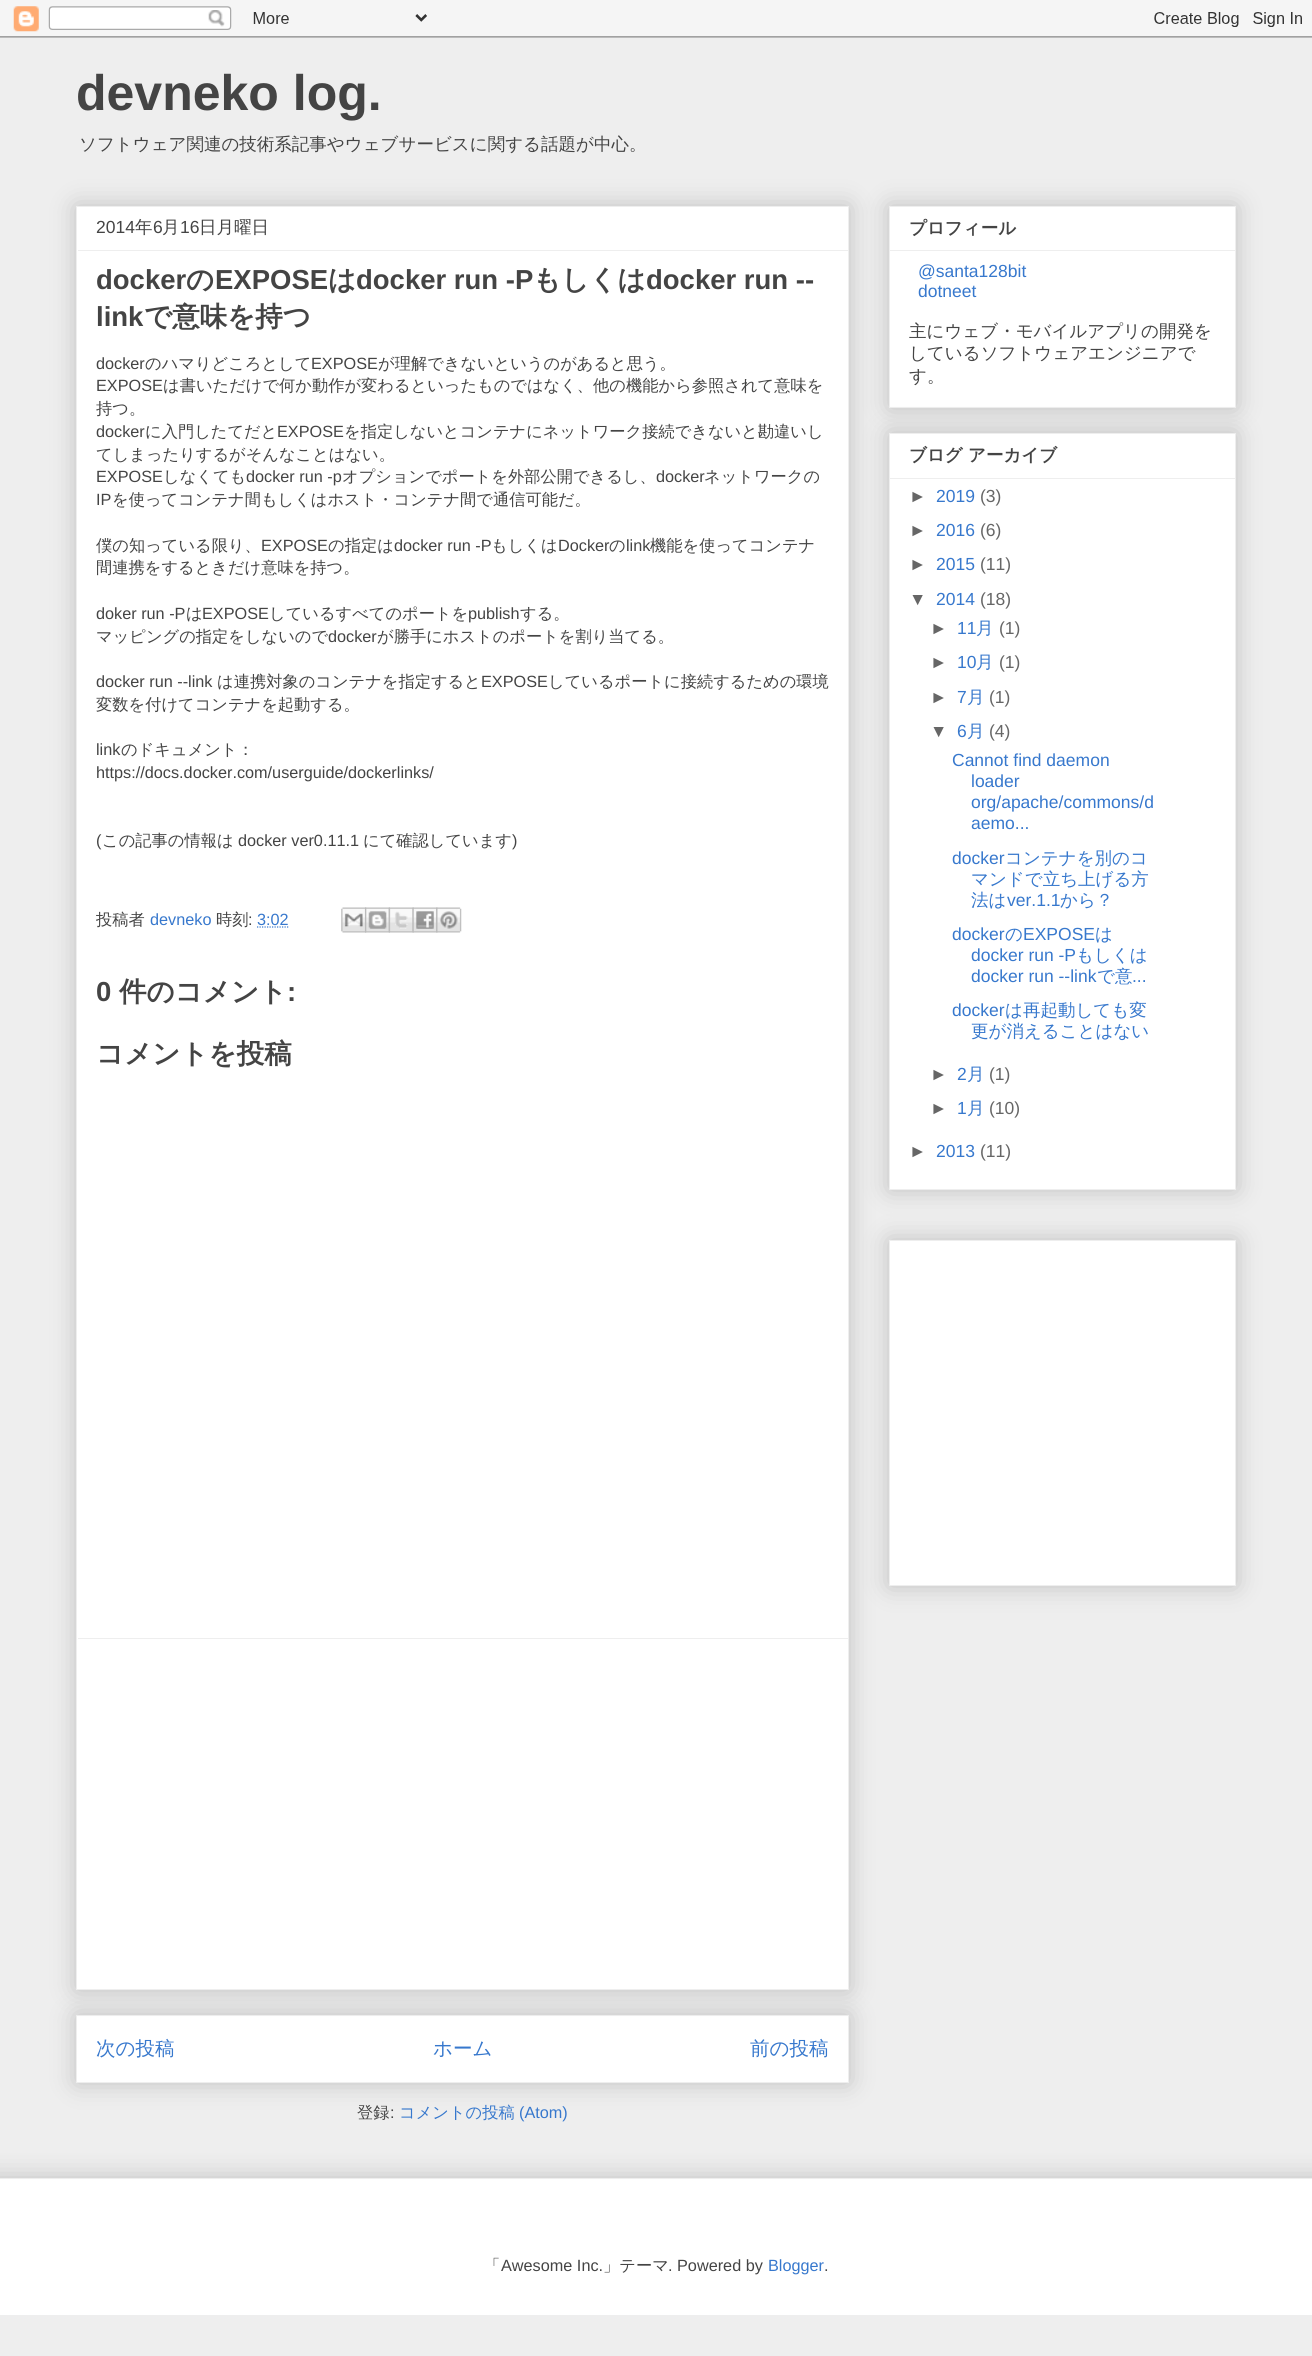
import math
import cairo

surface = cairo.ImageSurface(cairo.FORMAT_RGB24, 1312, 2356)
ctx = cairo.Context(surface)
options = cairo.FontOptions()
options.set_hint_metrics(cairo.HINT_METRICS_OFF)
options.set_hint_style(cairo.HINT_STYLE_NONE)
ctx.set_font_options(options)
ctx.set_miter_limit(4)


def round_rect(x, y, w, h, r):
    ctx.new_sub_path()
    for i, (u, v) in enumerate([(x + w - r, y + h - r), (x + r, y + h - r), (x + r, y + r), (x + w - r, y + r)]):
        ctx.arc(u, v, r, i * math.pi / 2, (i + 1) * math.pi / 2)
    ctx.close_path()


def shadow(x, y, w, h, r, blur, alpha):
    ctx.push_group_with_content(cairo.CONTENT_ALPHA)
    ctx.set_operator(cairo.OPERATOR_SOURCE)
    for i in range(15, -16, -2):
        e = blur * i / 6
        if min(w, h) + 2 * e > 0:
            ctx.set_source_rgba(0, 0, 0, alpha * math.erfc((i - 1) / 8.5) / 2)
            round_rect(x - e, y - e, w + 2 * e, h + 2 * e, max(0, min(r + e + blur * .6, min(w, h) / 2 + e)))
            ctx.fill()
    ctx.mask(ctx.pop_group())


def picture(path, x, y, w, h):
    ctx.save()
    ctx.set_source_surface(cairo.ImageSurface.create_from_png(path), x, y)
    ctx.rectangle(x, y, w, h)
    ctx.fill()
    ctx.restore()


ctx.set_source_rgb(0.933, 0.933, 0.933)
ctx.paint()
picture("img1.png", 0, 0, 1312, 38)
ctx.select_font_face("Liberation Sans", cairo.FONT_SLANT_NORMAL, cairo.FONT_WEIGHT_BOLD)
ctx.set_font_size(50)
ctx.set_source_rgb(0.267, 0.267, 0.267)
ctx.move_to(76, 110)
ctx.show_text("devneko log.")
ctx.select_font_face("WenQuanYi Zen Hei Medium")
ctx.set_font_size(17.5)
ctx.move_to(79, 150)
ctx.show_text("ソフトウェア関連の技術系記事やウェブサービスに関する話題が中心。")
ctx.set_source_rgb(0, 0, 0)
shadow(76, 2015, 773, 68, 0, 12.5, 0.2)
ctx.set_source_rgb(1, 1, 1)
ctx.rectangle(76.5, 2015.5, 772, 67)
ctx.fill_preserve()
ctx.set_source_rgb(0.933, 0.933, 0.933)
ctx.set_line_width(1)
ctx.stroke()
ctx.set_source_rgb(0, 0, 0)
shadow(76, 206, 773, 1784, 0, 12.5, 0.2)
ctx.set_source_rgb(1, 1, 1)
ctx.rectangle(76.5, 206.5, 772, 1783)
ctx.fill_preserve()
ctx.set_source_rgb(0.933, 0.933, 0.933)
ctx.stroke()
ctx.select_font_face("Liberation Sans")
ctx.set_source_rgb(0.267, 0.267, 0.267)
ctx.move_to(96, 233)
ctx.show_text("2014")
ctx.select_font_face("WenQuanYi Zen Hei Medium")
ctx.move_to(135, 233)
ctx.show_text("年")
ctx.select_font_face("Liberation Sans")
ctx.move_to(153, 233)
ctx.show_text("6")
ctx.select_font_face("WenQuanYi Zen Hei Medium")
ctx.move_to(162, 233)
ctx.show_text("月")
ctx.select_font_face("Liberation Sans")
ctx.move_to(180, 233)
ctx.show_text("16")
ctx.select_font_face("WenQuanYi Zen Hei Medium")
ctx.move_to(199, 233)
ctx.show_text("日月曜日")
ctx.set_source_rgb(0.933, 0.933, 0.933)
ctx.rectangle(78, 250, 770, 1)
ctx.fill()
ctx.select_font_face("Liberation Sans", cairo.FONT_SLANT_NORMAL, cairo.FONT_WEIGHT_BOLD)
ctx.set_font_size(27.5)
ctx.set_source_rgb(0.267, 0.267, 0.267)
ctx.move_to(96, 289)
ctx.show_text("docker")
ctx.select_font_face("WenQuanYi Zen Hei", cairo.FONT_SLANT_NORMAL, cairo.FONT_WEIGHT_BOLD)
ctx.move_to(186, 289)
ctx.show_text("の")
ctx.select_font_face("Liberation Sans", cairo.FONT_SLANT_NORMAL, cairo.FONT_WEIGHT_BOLD)
ctx.move_to(215, 289)
ctx.show_text("EXPOSE")
ctx.select_font_face("WenQuanYi Zen Hei", cairo.FONT_SLANT_NORMAL, cairo.FONT_WEIGHT_BOLD)
ctx.move_to(328, 289)
ctx.show_text("は")
ctx.select_font_face("Liberation Sans", cairo.FONT_SLANT_NORMAL, cairo.FONT_WEIGHT_BOLD)
ctx.move_to(356, 289)
ctx.show_text("docker run -P")
ctx.select_font_face("WenQuanYi Zen Hei", cairo.FONT_SLANT_NORMAL, cairo.FONT_WEIGHT_BOLD)
ctx.move_to(533, 289)
ctx.show_text("もしくは")
ctx.select_font_face("Liberation Sans", cairo.FONT_SLANT_NORMAL, cairo.FONT_WEIGHT_BOLD)
ctx.move_to(646, 289)
ctx.show_text("docker run --")
ctx.move_to(96, 326)
ctx.show_text("link")
ctx.select_font_face("WenQuanYi Zen Hei", cairo.FONT_SLANT_NORMAL, cairo.FONT_WEIGHT_BOLD)
ctx.move_to(144, 326)
ctx.show_text("で意味を持つ")
ctx.select_font_face("Liberation Sans")
ctx.set_font_size(16.25)
ctx.move_to(96, 369)
ctx.show_text("docker")
ctx.select_font_face("WenQuanYi Zen Hei Medium")
ctx.move_to(145, 369)
ctx.show_text("のハマりどころとして")
ctx.select_font_face("Liberation Sans")
ctx.move_to(311, 369)
ctx.show_text("EXPOSE")
ctx.select_font_face("WenQuanYi Zen Hei Medium")
ctx.move_to(378, 369)
ctx.show_text("が理解できないというのがあると思う。")
ctx.select_font_face("Liberation Sans")
ctx.move_to(96, 391)
ctx.show_text("EXPOSE")
ctx.select_font_face("WenQuanYi Zen Hei Medium")
ctx.move_to(163, 391)
ctx.show_text("は書いただけで何か動作が変わるといったものではなく、他の機能から参照されて意味を")
ctx.move_to(96, 414)
ctx.show_text("持つ。")
ctx.select_font_face("Liberation Sans")
ctx.move_to(96, 437)
ctx.show_text("docker")
ctx.select_font_face("WenQuanYi Zen Hei Medium")
ctx.move_to(145, 437)
ctx.show_text("に入門したてだと")
ctx.select_font_face("Liberation Sans")
ctx.move_to(277, 437)
ctx.show_text("EXPOSE")
ctx.select_font_face("WenQuanYi Zen Hei Medium")
ctx.move_to(344, 437)
ctx.show_text("を指定しないとコンテナにネットワーク接続できないと勘違いし")
ctx.move_to(96, 460)
ctx.show_text("てしまったりするがそんなことはない。")
ctx.select_font_face("Liberation Sans")
ctx.move_to(96, 482)
ctx.show_text("EXPOSE")
ctx.select_font_face("WenQuanYi Zen Hei Medium")
ctx.move_to(163, 482)
ctx.show_text("しなくても")
ctx.select_font_face("Liberation Sans")
ctx.move_to(246, 482)
ctx.show_text("docker run -p")
ctx.select_font_face("WenQuanYi Zen Hei Medium")
ctx.move_to(342, 482)
ctx.show_text("オプションでポートを外部公開できるし、")
ctx.select_font_face("Liberation Sans")
ctx.move_to(656, 482)
ctx.show_text("docker")
ctx.select_font_face("WenQuanYi Zen Hei Medium")
ctx.move_to(704, 482)
ctx.show_text("ネットワークの")
ctx.select_font_face("Liberation Sans")
ctx.move_to(96, 505)
ctx.show_text("IP")
ctx.select_font_face("WenQuanYi Zen Hei Medium")
ctx.move_to(112, 505)
ctx.show_text("を使ってコンテナ間もしくはホスト・コンテナ間で通信可能だ。")
ctx.move_to(96, 551)
ctx.show_text("僕の知っている限り、")
ctx.select_font_face("Liberation Sans")
ctx.move_to(261, 551)
ctx.show_text("EXPOSE")
ctx.select_font_face("WenQuanYi Zen Hei Medium")
ctx.move_to(328, 551)
ctx.show_text("の指定は")
ctx.select_font_face("Liberation Sans")
ctx.move_to(394, 551)
ctx.show_text("docker run -P")
ctx.select_font_face("WenQuanYi Zen Hei Medium")
ctx.move_to(491, 551)
ctx.show_text("もしくは")
ctx.select_font_face("Liberation Sans")
ctx.move_to(558, 551)
ctx.show_text("Docker")
ctx.select_font_face("WenQuanYi Zen Hei Medium")
ctx.move_to(609, 551)
ctx.show_text("の")
ctx.select_font_face("Liberation Sans")
ctx.move_to(626, 551)
ctx.show_text("link")
ctx.select_font_face("WenQuanYi Zen Hei Medium")
ctx.move_to(650, 551)
ctx.show_text("機能を使ってコンテナ")
ctx.move_to(96, 573)
ctx.show_text("間連携をするときだけ意味を持つ。")
ctx.select_font_face("Liberation Sans")
ctx.move_to(96, 619)
ctx.show_text("doker run -P")
ctx.select_font_face("WenQuanYi Zen Hei Medium")
ctx.move_to(186, 619)
ctx.show_text("は")
ctx.select_font_face("Liberation Sans")
ctx.move_to(202, 619)
ctx.show_text("EXPOSE")
ctx.select_font_face("WenQuanYi Zen Hei Medium")
ctx.move_to(269, 619)
ctx.show_text("しているすべてのポートを")
ctx.select_font_face("Liberation Sans")
ctx.move_to(468, 619)
ctx.show_text("publish")
ctx.select_font_face("WenQuanYi Zen Hei Medium")
ctx.move_to(520, 619)
ctx.show_text("する。")
ctx.move_to(96, 642)
ctx.show_text("マッピングの指定をしないので")
ctx.select_font_face("Liberation Sans")
ctx.move_to(328, 642)
ctx.show_text("docker")
ctx.select_font_face("WenQuanYi Zen Hei Medium")
ctx.move_to(377, 642)
ctx.show_text("が勝手にホストのポートを割り当てる。")
ctx.select_font_face("Liberation Sans")
ctx.move_to(96, 687)
ctx.show_text("docker run --link")
ctx.select_font_face("WenQuanYi Zen Hei Medium")
ctx.move_to(217, 687)
ctx.show_text("は連携対象のコンテナを指定すると")
ctx.select_font_face("Liberation Sans")
ctx.move_to(481, 687)
ctx.show_text("EXPOSE")
ctx.select_font_face("WenQuanYi Zen Hei Medium")
ctx.move_to(548, 687)
ctx.show_text("しているポートに接続するための環境")
ctx.move_to(96, 710)
ctx.show_text("変数を付けてコンテナを起動する。")
ctx.select_font_face("Liberation Sans")
ctx.move_to(96, 755)
ctx.show_text("link")
ctx.select_font_face("WenQuanYi Zen Hei Medium")
ctx.move_to(121, 755)
ctx.show_text("のドキュメント：")
ctx.select_font_face("Liberation Sans")
ctx.move_to(96, 778)
ctx.show_text("https://docs.docker.com/userguide/dockerlinks/")
ctx.move_to(96, 846)
ctx.show_text("(")
ctx.select_font_face("WenQuanYi Zen Hei Medium")
ctx.move_to(102, 846)
ctx.show_text("この記事の情報は")
ctx.select_font_face("Liberation Sans")
ctx.move_to(238, 846)
ctx.show_text("docker ver0.11.1")
ctx.select_font_face("WenQuanYi Zen Hei Medium")
ctx.move_to(363, 846)
ctx.show_text("にて確認しています")
ctx.select_font_face("Liberation Sans")
ctx.move_to(512, 846)
ctx.show_text(")")
ctx.select_font_face("WenQuanYi Zen Hei Medium")
ctx.move_to(96, 925)
ctx.show_text("投稿者")
ctx.select_font_face("Liberation Sans")
ctx.set_source_rgb(0.216, 0.471, 0.804)
ctx.move_to(150, 925)
ctx.show_text("devneko")
ctx.select_font_face("WenQuanYi Zen Hei Medium")
ctx.set_source_rgb(0.267, 0.267, 0.267)
ctx.move_to(216, 925)
ctx.show_text("時刻")
ctx.select_font_face("Liberation Sans")
ctx.move_to(248, 925)
ctx.show_text(":")
ctx.set_source_rgb(0.216, 0.471, 0.804)
ctx.move_to(257, 925)
ctx.show_text("3:02")
ctx.new_path()
ctx.move_to(257, 927)
ctx.line_to(288.5, 927)
ctx.set_line_width(1.2)
ctx.set_dash([1.25, 1.25])
ctx.stroke()
picture("img2.png", 341, 907, 26, 26)
picture("img3.png", 365, 907, 25, 26)
picture("img4.png", 388, 907, 26, 26)
picture("img5.png", 412, 907, 26, 26)
picture("img6.png", 436, 907, 26, 26)
ctx.select_font_face("Liberation Sans", cairo.FONT_SLANT_NORMAL, cairo.FONT_WEIGHT_BOLD)
ctx.set_font_size(27.5)
ctx.set_source_rgb(0.267, 0.267, 0.267)
ctx.move_to(96, 1001)
ctx.show_text("0")
ctx.select_font_face("WenQuanYi Zen Hei", cairo.FONT_SLANT_NORMAL, cairo.FONT_WEIGHT_BOLD)
ctx.move_to(119, 1001)
ctx.show_text("件のコメント")
ctx.select_font_face("Liberation Sans", cairo.FONT_SLANT_NORMAL, cairo.FONT_WEIGHT_BOLD)
ctx.move_to(287, 1001)
ctx.show_text(":")
ctx.select_font_face("WenQuanYi Zen Hei", cairo.FONT_SLANT_NORMAL, cairo.FONT_WEIGHT_BOLD)
ctx.move_to(96, 1063)
ctx.show_text("コメントを投稿")
ctx.set_source_rgb(0.933, 0.933, 0.933)
ctx.rectangle(78, 1638, 770, 1)
ctx.fill()
ctx.select_font_face("WenQuanYi Zen Hei Medium")
ctx.set_font_size(19.5)
ctx.set_source_rgb(0.216, 0.471, 0.804)
ctx.move_to(96, 2055)
ctx.show_text("次の投稿")
ctx.move_to(433, 2055)
ctx.show_text("ホーム")
ctx.move_to(750, 2055)
ctx.show_text("前の投稿")
ctx.set_font_size(16.25)
ctx.set_source_rgb(0.267, 0.267, 0.267)
ctx.move_to(357, 2118)
ctx.show_text("登録")
ctx.select_font_face("Liberation Sans")
ctx.move_to(390, 2118)
ctx.show_text(":")
ctx.select_font_face("WenQuanYi Zen Hei Medium")
ctx.set_source_rgb(0.216, 0.471, 0.804)
ctx.move_to(399, 2118)
ctx.show_text("コメントの投稿")
ctx.select_font_face("Liberation Sans")
ctx.move_to(519, 2118)
ctx.show_text("(Atom)")
ctx.set_source_rgb(0, 0, 0)
shadow(889, 206, 347, 202, 0, 12.5, 0.2)
ctx.set_source_rgb(1, 1, 1)
ctx.rectangle(889.5, 206.5, 346, 201)
ctx.fill_preserve()
ctx.set_source_rgb(0.933, 0.933, 0.933)
ctx.set_line_width(1)
ctx.set_dash([])
ctx.stroke()
ctx.select_font_face("WenQuanYi Zen Hei", cairo.FONT_SLANT_NORMAL, cairo.FONT_WEIGHT_BOLD)
ctx.set_font_size(17.5)
ctx.set_source_rgb(0.267, 0.267, 0.267)
ctx.move_to(909, 234)
ctx.show_text("プロフィール")
ctx.set_source_rgb(0.933, 0.933, 0.933)
ctx.rectangle(890, 250, 345, 1)
ctx.fill()
ctx.select_font_face("Liberation Sans")
ctx.set_source_rgb(0.216, 0.471, 0.804)
ctx.move_to(918, 277)
ctx.show_text("@santa128bit")
ctx.move_to(918, 297)
ctx.show_text("dotneet")
ctx.select_font_face("WenQuanYi Zen Hei Medium")
ctx.set_source_rgb(0.267, 0.267, 0.267)
ctx.move_to(909, 337)
ctx.show_text("主にウェブ・モバイルアプリの開発を")
ctx.move_to(909, 359)
ctx.show_text("しているソフトウェアエンジニアで")
ctx.move_to(909, 382)
ctx.show_text("す。")
ctx.set_source_rgb(0, 0, 0)
shadow(889, 433, 347, 757, 0, 12.5, 0.2)
ctx.set_source_rgb(1, 1, 1)
ctx.rectangle(889.5, 433.5, 346, 756)
ctx.fill_preserve()
ctx.set_source_rgb(0.933, 0.933, 0.933)
ctx.stroke()
ctx.select_font_face("WenQuanYi Zen Hei", cairo.FONT_SLANT_NORMAL, cairo.FONT_WEIGHT_BOLD)
ctx.set_source_rgb(0.267, 0.267, 0.267)
ctx.move_to(909, 461)
ctx.show_text("ブログ アーカイブ")
ctx.set_source_rgb(0.933, 0.933, 0.933)
ctx.rectangle(890, 478, 345, 1)
ctx.fill()
ctx.select_font_face("Liberation Sans")
ctx.set_source_rgb(0.4, 0.4, 0.4)
ctx.move_to(909, 502)
ctx.show_text("►")
ctx.set_source_rgb(0.216, 0.471, 0.804)
ctx.move_to(936, 502)
ctx.show_text("2019")
ctx.set_source_rgb(0.4, 0.4, 0.4)
ctx.move_to(980, 502)
ctx.show_text("(3)")
ctx.move_to(909, 536)
ctx.show_text("►")
ctx.set_source_rgb(0.216, 0.471, 0.804)
ctx.move_to(936, 536)
ctx.show_text("2016")
ctx.set_source_rgb(0.4, 0.4, 0.4)
ctx.move_to(980, 536)
ctx.show_text("(6)")
ctx.move_to(909, 570)
ctx.show_text("►")
ctx.set_source_rgb(0.216, 0.471, 0.804)
ctx.move_to(936, 570)
ctx.show_text("2015")
ctx.set_source_rgb(0.4, 0.4, 0.4)
ctx.move_to(980, 570)
ctx.show_text("(11)")
ctx.move_to(909, 605)
ctx.show_text("▼")
ctx.set_source_rgb(0.216, 0.471, 0.804)
ctx.move_to(936, 605)
ctx.show_text("2014")
ctx.set_source_rgb(0.4, 0.4, 0.4)
ctx.move_to(980, 605)
ctx.show_text("(18)")
ctx.move_to(930, 634)
ctx.show_text("►")
ctx.set_source_rgb(0.216, 0.471, 0.804)
ctx.move_to(957, 634)
ctx.show_text("11")
ctx.select_font_face("WenQuanYi Zen Hei Medium")
ctx.move_to(976, 634)
ctx.show_text("月")
ctx.select_font_face("Liberation Sans")
ctx.set_source_rgb(0.4, 0.4, 0.4)
ctx.move_to(999, 634)
ctx.show_text("(1)")
ctx.move_to(930, 668)
ctx.show_text("►")
ctx.set_source_rgb(0.216, 0.471, 0.804)
ctx.move_to(957, 668)
ctx.show_text("10")
ctx.select_font_face("WenQuanYi Zen Hei Medium")
ctx.move_to(976, 668)
ctx.show_text("月")
ctx.select_font_face("Liberation Sans")
ctx.set_source_rgb(0.4, 0.4, 0.4)
ctx.move_to(999, 668)
ctx.show_text("(1)")
ctx.move_to(930, 703)
ctx.show_text("►")
ctx.set_source_rgb(0.216, 0.471, 0.804)
ctx.move_to(957, 703)
ctx.show_text("7")
ctx.select_font_face("WenQuanYi Zen Hei Medium")
ctx.move_to(967, 703)
ctx.show_text("月")
ctx.select_font_face("Liberation Sans")
ctx.set_source_rgb(0.4, 0.4, 0.4)
ctx.move_to(989, 703)
ctx.show_text("(1)")
ctx.move_to(930, 737)
ctx.show_text("▼")
ctx.set_source_rgb(0.216, 0.471, 0.804)
ctx.move_to(957, 737)
ctx.show_text("6")
ctx.select_font_face("WenQuanYi Zen Hei Medium")
ctx.move_to(967, 737)
ctx.show_text("月")
ctx.select_font_face("Liberation Sans")
ctx.set_source_rgb(0.4, 0.4, 0.4)
ctx.move_to(989, 737)
ctx.show_text("(4)")
ctx.set_source_rgb(0.216, 0.471, 0.804)
ctx.move_to(952, 766)
ctx.show_text("Cannot find daemon")
ctx.move_to(971, 787)
ctx.show_text("loader")
ctx.move_to(971, 808)
ctx.show_text("org/apache/commons/d")
ctx.move_to(971, 829)
ctx.show_text("aemo...")
ctx.move_to(952, 864)
ctx.show_text("docker")
ctx.select_font_face("WenQuanYi Zen Hei Medium")
ctx.move_to(1005, 864)
ctx.show_text("コンテナを別のコ")
ctx.move_to(971, 885)
ctx.show_text("マンドで立ち上げる方")
ctx.move_to(971, 906)
ctx.show_text("法は")
ctx.select_font_face("Liberation Sans")
ctx.move_to(1007, 906)
ctx.show_text("ver.1.1")
ctx.select_font_face("WenQuanYi Zen Hei Medium")
ctx.move_to(1060, 906)
ctx.show_text("から？")
ctx.select_font_face("Liberation Sans")
ctx.move_to(952, 940)
ctx.show_text("docker")
ctx.select_font_face("WenQuanYi Zen Hei Medium")
ctx.move_to(1005, 940)
ctx.show_text("の")
ctx.select_font_face("Liberation Sans")
ctx.move_to(1023, 940)
ctx.show_text("EXPOSE")
ctx.select_font_face("WenQuanYi Zen Hei Medium")
ctx.move_to(1095, 940)
ctx.show_text("は")
ctx.select_font_face("Liberation Sans")
ctx.move_to(971, 961)
ctx.show_text("docker run -P")
ctx.select_font_face("WenQuanYi Zen Hei Medium")
ctx.move_to(1076, 961)
ctx.show_text("もしくは")
ctx.select_font_face("Liberation Sans")
ctx.move_to(971, 982)
ctx.show_text("docker run --link")
ctx.select_font_face("WenQuanYi Zen Hei Medium")
ctx.move_to(1097, 982)
ctx.show_text("で意")
ctx.select_font_face("Liberation Sans")
ctx.move_to(1132, 982)
ctx.show_text("...")
ctx.move_to(952, 1016)
ctx.show_text("docker")
ctx.select_font_face("WenQuanYi Zen Hei Medium")
ctx.move_to(1005, 1016)
ctx.show_text("は再起動しても変")
ctx.move_to(971, 1037)
ctx.show_text("更が消えることはない")
ctx.select_font_face("Liberation Sans")
ctx.set_source_rgb(0.4, 0.4, 0.4)
ctx.move_to(930, 1080)
ctx.show_text("►")
ctx.set_source_rgb(0.216, 0.471, 0.804)
ctx.move_to(957, 1080)
ctx.show_text("2")
ctx.select_font_face("WenQuanYi Zen Hei Medium")
ctx.move_to(967, 1080)
ctx.show_text("月")
ctx.select_font_face("Liberation Sans")
ctx.set_source_rgb(0.4, 0.4, 0.4)
ctx.move_to(989, 1080)
ctx.show_text("(1)")
ctx.move_to(930, 1114)
ctx.show_text("►")
ctx.set_source_rgb(0.216, 0.471, 0.804)
ctx.move_to(957, 1114)
ctx.show_text("1")
ctx.select_font_face("WenQuanYi Zen Hei Medium")
ctx.move_to(967, 1114)
ctx.show_text("月")
ctx.select_font_face("Liberation Sans")
ctx.set_source_rgb(0.4, 0.4, 0.4)
ctx.move_to(989, 1114)
ctx.show_text("(10)")
ctx.move_to(909, 1157)
ctx.show_text("►")
ctx.set_source_rgb(0.216, 0.471, 0.804)
ctx.move_to(936, 1157)
ctx.show_text("2013")
ctx.set_source_rgb(0.4, 0.4, 0.4)
ctx.move_to(980, 1157)
ctx.show_text("(11)")
ctx.set_source_rgb(0, 0, 0)
shadow(889, 1240, 347, 346, 0, 12.5, 0.2)
ctx.set_source_rgb(1, 1, 1)
ctx.rectangle(889.5, 1240.5, 346, 345)
ctx.fill_preserve()
ctx.set_source_rgb(0.933, 0.933, 0.933)
ctx.stroke()
ctx.save()
ctx.rectangle(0, 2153, 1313, 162)
ctx.clip()
ctx.set_source_rgb(0, 0, 0)
shadow(-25, 2178, 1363, 137, 0, 12.5, 0.2)
ctx.restore()
ctx.set_source_rgb(1, 1, 1)
ctx.rectangle(0, 2179, 1312, 136)
ctx.fill()
ctx.set_source_rgb(0.933, 0.933, 0.933)
ctx.rectangle(0, 2178, 1312, 1)
ctx.fill()
ctx.select_font_face("WenQuanYi Zen Hei Medium")
ctx.set_font_size(16.25)
ctx.set_source_rgb(0.267, 0.267, 0.267)
ctx.move_to(484, 2271)
ctx.show_text("「")
ctx.select_font_face("Liberation Sans")
ctx.move_to(501, 2271)
ctx.show_text("Awesome Inc.")
ctx.select_font_face("WenQuanYi Zen Hei Medium")
ctx.move_to(603, 2271)
ctx.show_text("」テーマ")
ctx.select_font_face("Liberation Sans")
ctx.move_to(668, 2271)
ctx.show_text(". Powered by")
ctx.set_source_rgb(0.216, 0.471, 0.804)
ctx.move_to(768, 2271)
ctx.show_text("Blogger")
ctx.set_source_rgb(0.267, 0.267, 0.267)
ctx.move_to(824, 2271)
ctx.show_text(".")
surface.write_to_png("page.png")
